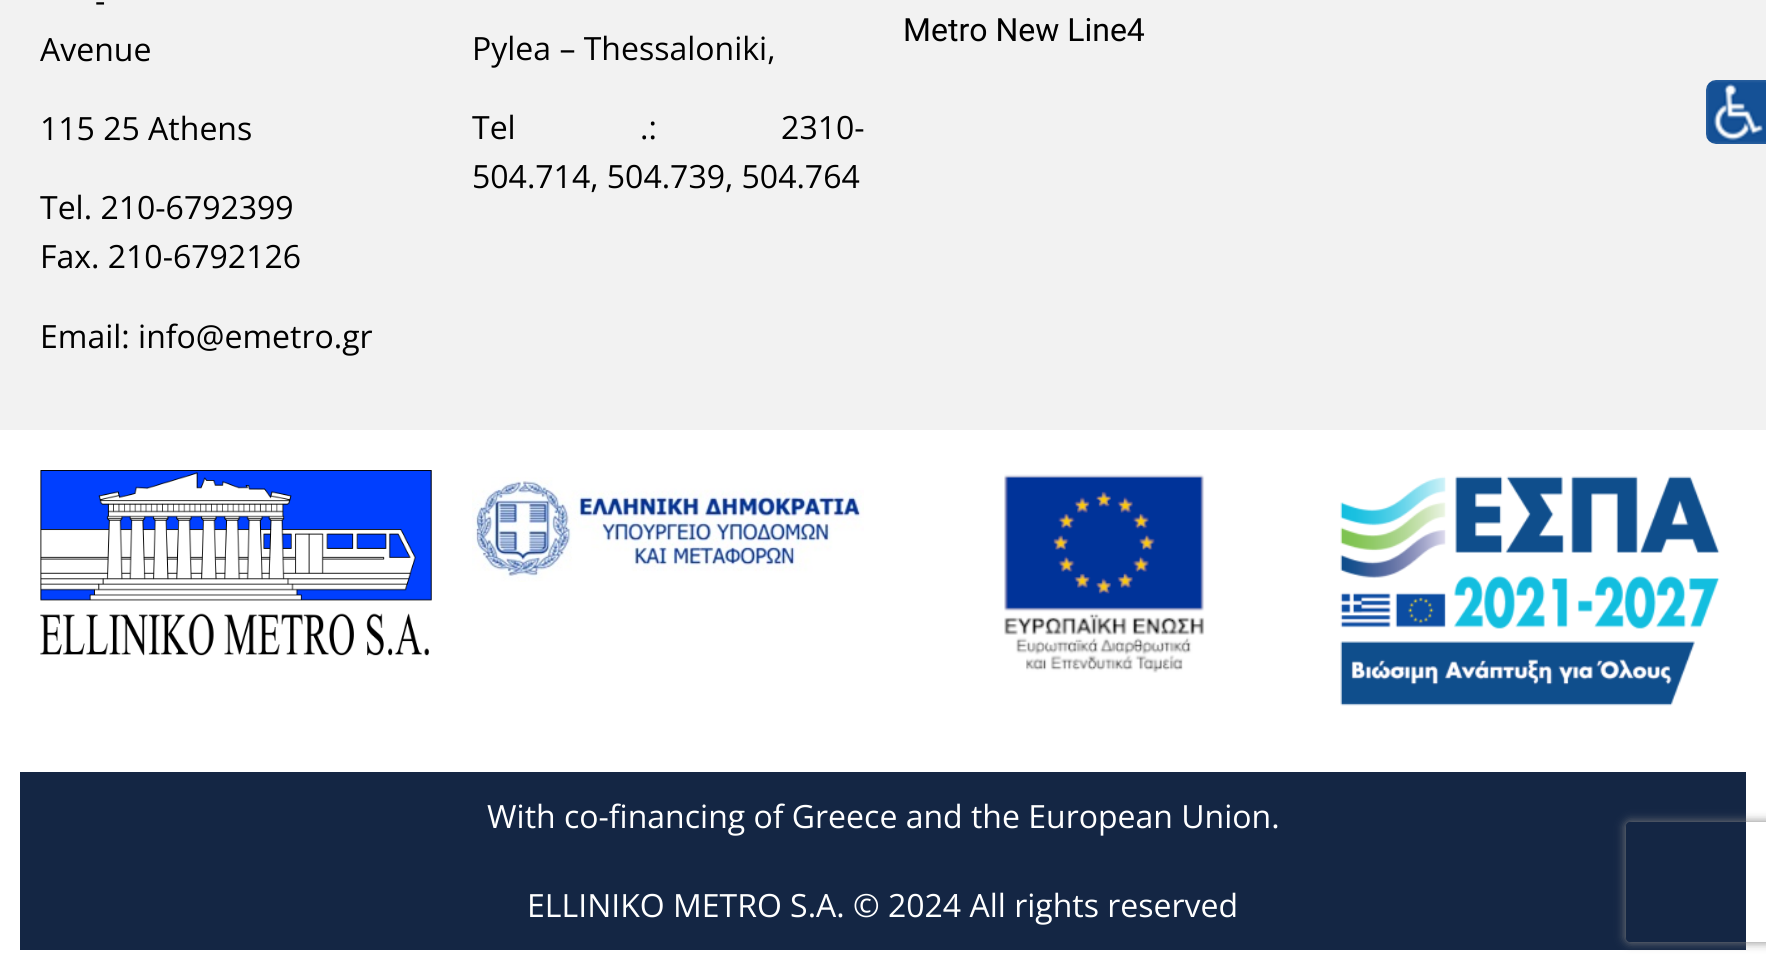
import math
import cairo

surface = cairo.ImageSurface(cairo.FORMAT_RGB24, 1766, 969)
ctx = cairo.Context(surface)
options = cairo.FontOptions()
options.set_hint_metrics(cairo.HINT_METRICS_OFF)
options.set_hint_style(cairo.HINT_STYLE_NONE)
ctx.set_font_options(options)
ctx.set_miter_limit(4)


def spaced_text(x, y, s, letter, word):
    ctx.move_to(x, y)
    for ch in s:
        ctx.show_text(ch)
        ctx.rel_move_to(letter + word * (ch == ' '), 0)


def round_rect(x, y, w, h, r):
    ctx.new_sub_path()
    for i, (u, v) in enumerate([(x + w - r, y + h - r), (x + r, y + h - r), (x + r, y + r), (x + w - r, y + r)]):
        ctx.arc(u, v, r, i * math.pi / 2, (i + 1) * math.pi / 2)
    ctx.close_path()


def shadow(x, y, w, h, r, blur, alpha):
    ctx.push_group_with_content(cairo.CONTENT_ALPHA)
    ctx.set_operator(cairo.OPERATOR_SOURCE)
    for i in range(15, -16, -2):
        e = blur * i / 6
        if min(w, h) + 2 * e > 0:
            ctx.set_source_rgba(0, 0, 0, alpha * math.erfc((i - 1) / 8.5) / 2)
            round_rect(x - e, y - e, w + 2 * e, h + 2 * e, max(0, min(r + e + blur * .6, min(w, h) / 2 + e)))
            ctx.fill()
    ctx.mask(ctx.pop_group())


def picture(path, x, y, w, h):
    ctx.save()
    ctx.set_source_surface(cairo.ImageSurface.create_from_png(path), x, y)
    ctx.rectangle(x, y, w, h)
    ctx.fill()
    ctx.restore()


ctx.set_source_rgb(1, 1, 1)
ctx.paint()
ctx.set_source_rgb(0.949, 0.949, 0.949)
ctx.rectangle(0, 0, 1766, 430)
ctx.fill()
ctx.select_font_face("Open Sans")
ctx.set_font_size(32)
ctx.set_source_rgb(0, 0, 0)
spaced_text(95, 12, "-", 0, 100)
ctx.move_to(40, 61)
ctx.show_text("Avenue")
ctx.move_to(40, 140)
ctx.show_text("115 25 Athens")
ctx.move_to(40, 219)
ctx.show_text("Tel. 210-6792399")
ctx.move_to(40, 268)
ctx.show_text("Fax. 210-6792126")
ctx.move_to(40, 348)
ctx.show_text("Email: info@emetro.gr")
ctx.select_font_face("Roboto")
ctx.move_to(903, 41)
ctx.show_text("Metro New Line4")
ctx.select_font_face("Open Sans")
ctx.move_to(472, 60)
ctx.show_text("Pylea – Thessaloniki,")
spaced_text(472, 139, "Tel .: 2310-", 0, 116)
ctx.move_to(472, 188)
ctx.show_text("504.714, 504.739, 504.764")
picture("img1.png", 40, 470, 392, 186)
picture("img2.png", 472, 477, 392, 105)
picture("img3.png", 1004, 474, 201, 199)
picture("img4.png", 1340, 476, 380, 230)
ctx.set_source_rgb(0.082, 0.149, 0.267)
ctx.rectangle(20, 772, 1726, 178)
ctx.fill()
ctx.set_source_rgb(1, 1, 1)
ctx.move_to(487, 828)
ctx.show_text("With co-financing of Greece and the European Union.")
ctx.move_to(527, 917)
ctx.show_text("ELLINIKO METRO S.A. © 2024 All rights reserved")
ctx.save()
ctx.set_fill_rule(cairo.FILL_RULE_EVEN_ODD)
ctx.new_path()
ctx.move_to(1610, 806)
ctx.line_to(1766, 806)
ctx.line_to(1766, 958)
ctx.line_to(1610, 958)
ctx.close_path()
ctx.move_to(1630, 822)
ctx.line_to(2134, 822)
ctx.curve_to(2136, 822, 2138, 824, 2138, 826)
ctx.line_to(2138, 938)
ctx.curve_to(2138, 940, 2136, 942, 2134, 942)
ctx.line_to(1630, 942)
ctx.curve_to(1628, 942, 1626, 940, 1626, 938)
ctx.line_to(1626, 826)
ctx.curve_to(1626, 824, 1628, 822, 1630, 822)
ctx.close_path()
ctx.clip()
ctx.set_source_rgb(0.502, 0.502, 0.502)
shadow(1626, 822, 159, 120, 4, 5, 1)
ctx.restore()
ctx.set_source_rgb(0.933, 0.933, 0.933)
ctx.new_path()
ctx.move_to(1716, 80)
ctx.line_to(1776, 80)
ctx.line_to(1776, 144)
ctx.line_to(1716, 144)
ctx.curve_to(1710.5, 144, 1706, 139.5, 1706, 134)
ctx.line_to(1706, 90)
ctx.curve_to(1706, 84.5, 1710.5, 80, 1716, 80)
ctx.close_path()
ctx.fill()
picture("img5.png", 1706, 80, 60, 64)
surface.write_to_png("page.png")
